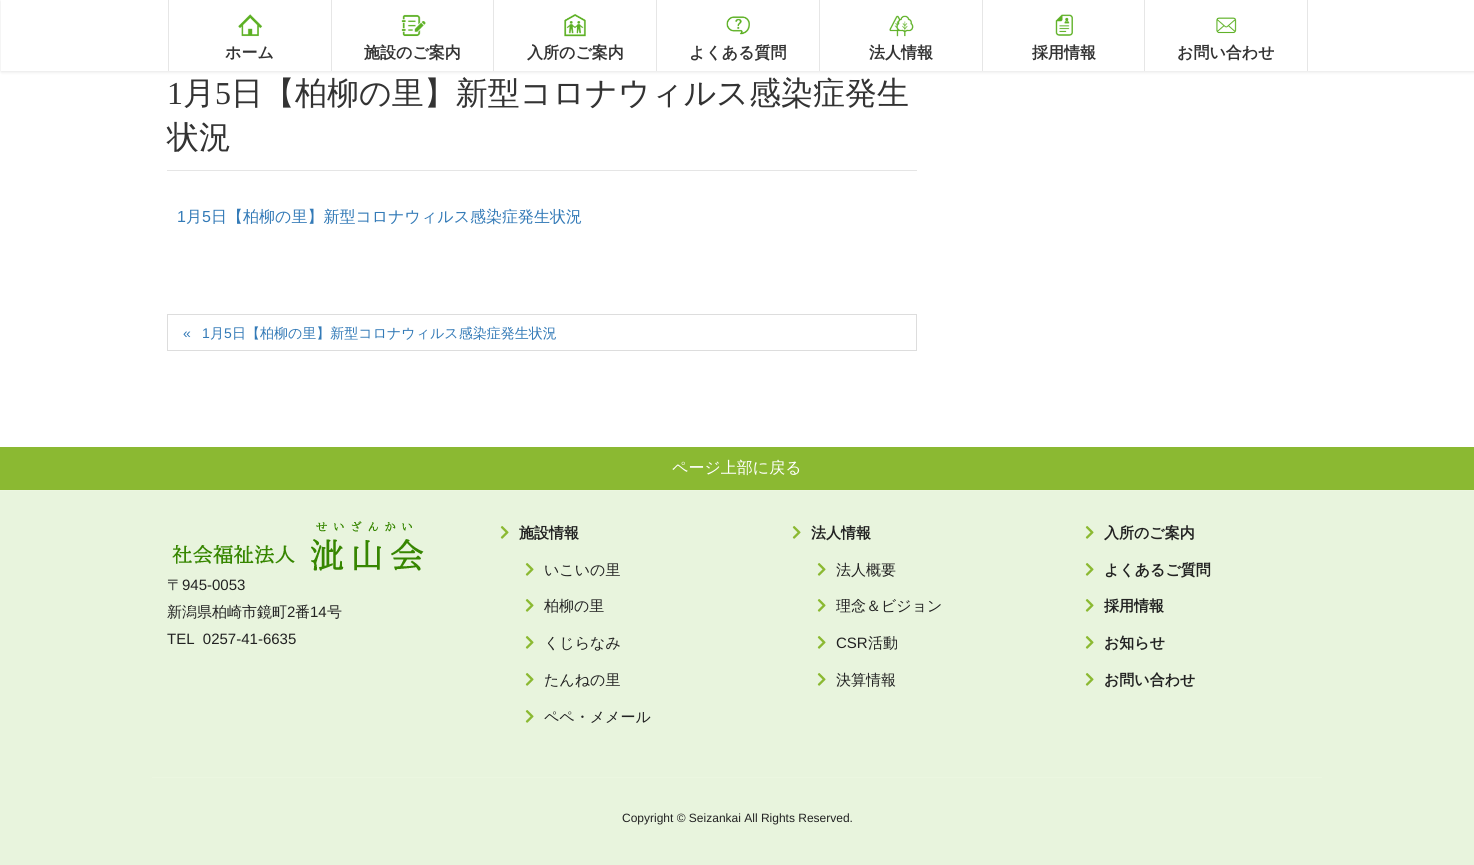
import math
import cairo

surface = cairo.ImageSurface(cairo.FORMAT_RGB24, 1474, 865)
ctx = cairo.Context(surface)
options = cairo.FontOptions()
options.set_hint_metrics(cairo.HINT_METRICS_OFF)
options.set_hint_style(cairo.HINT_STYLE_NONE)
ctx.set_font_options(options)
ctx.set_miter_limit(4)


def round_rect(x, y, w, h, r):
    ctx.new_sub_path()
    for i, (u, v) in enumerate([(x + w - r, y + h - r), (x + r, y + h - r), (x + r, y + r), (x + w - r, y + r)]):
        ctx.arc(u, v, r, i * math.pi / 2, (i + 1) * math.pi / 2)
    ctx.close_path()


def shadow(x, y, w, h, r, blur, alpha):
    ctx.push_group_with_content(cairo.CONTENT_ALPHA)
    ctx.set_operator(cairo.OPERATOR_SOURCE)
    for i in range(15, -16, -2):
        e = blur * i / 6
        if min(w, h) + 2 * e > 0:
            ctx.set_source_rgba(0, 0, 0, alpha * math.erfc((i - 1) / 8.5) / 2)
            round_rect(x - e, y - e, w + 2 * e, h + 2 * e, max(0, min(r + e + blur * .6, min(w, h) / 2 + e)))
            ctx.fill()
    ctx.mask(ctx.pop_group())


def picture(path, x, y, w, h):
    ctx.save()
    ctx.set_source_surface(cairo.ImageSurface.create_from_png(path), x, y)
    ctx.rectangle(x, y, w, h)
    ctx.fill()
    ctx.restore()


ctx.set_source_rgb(1, 1, 1)
ctx.paint()
ctx.set_source_rgb(0, 0, 0)
shadow(1, 1, 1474, 71, 0, 1.5, 0.1)
ctx.set_source_rgb(1, 1, 1)
ctx.rectangle(1, 0, 1473, 71)
ctx.fill()
ctx.set_source_rgb(0.902, 0.902, 0.902)
ctx.rectangle(168, 0, 1, 71)
ctx.fill()
picture("img1.png", 238, 14, 25, 23)
ctx.select_font_face("WenQuanYi Zen Hei", cairo.FONT_SLANT_NORMAL, cairo.FONT_WEIGHT_BOLD)
ctx.set_font_size(16)
ctx.set_source_rgb(0.2, 0.2, 0.2)
ctx.move_to(225, 58)
ctx.show_text("ホーム")
ctx.set_source_rgb(0.902, 0.902, 0.902)
ctx.rectangle(331, 0, 1, 71)
ctx.fill()
picture("img2.png", 401, 14, 25, 23)
ctx.set_source_rgb(0.2, 0.2, 0.2)
ctx.move_to(364, 58)
ctx.show_text("施設のご案内")
ctx.set_source_rgb(0.902, 0.902, 0.902)
ctx.rectangle(493, 0, 1, 71)
ctx.fill()
picture("img3.png", 564, 14, 22, 23)
ctx.set_source_rgb(0.2, 0.2, 0.2)
ctx.move_to(527, 58)
ctx.show_text("入所のご案内")
ctx.set_source_rgb(0.902, 0.902, 0.902)
ctx.rectangle(656, 0, 1, 71)
ctx.fill()
picture("img4.png", 726, 16, 24, 19)
ctx.set_source_rgb(0.2, 0.2, 0.2)
ctx.move_to(689, 58)
ctx.show_text("よくある質問")
ctx.set_source_rgb(0.902, 0.902, 0.902)
ctx.rectangle(819, 0, 1, 71)
ctx.fill()
picture("img5.png", 889, 15, 25, 22)
ctx.set_source_rgb(0.2, 0.2, 0.2)
ctx.move_to(869, 58)
ctx.show_text("法人情報")
ctx.set_source_rgb(0.902, 0.902, 0.902)
ctx.rectangle(982, 0, 1, 71)
ctx.fill()
picture("img6.png", 1055, 14, 18, 22)
ctx.set_source_rgb(0.2, 0.2, 0.2)
ctx.move_to(1032, 58)
ctx.show_text("採用情報")
ctx.set_source_rgb(0.902, 0.902, 0.902)
ctx.rectangle(1307, 0, 1, 71)
ctx.fill()
ctx.rectangle(1144, 0, 1, 71)
ctx.fill()
picture("img7.png", 1216, 17, 21, 17)
ctx.set_source_rgb(0.2, 0.2, 0.2)
ctx.move_to(1177, 58)
ctx.show_text("お問い合わせ")
ctx.set_source_rgb(0.898, 0.898, 0.898)
ctx.rectangle(167, 170, 750, 1)
ctx.fill()
ctx.select_font_face("Liberation Serif")
ctx.set_font_size(32)
ctx.set_source_rgb(0.2, 0.2, 0.2)
ctx.move_to(167, 104)
ctx.show_text("1")
ctx.select_font_face("WenQuanYi Zen Hei Medium")
ctx.move_to(183, 104)
ctx.show_text("月")
ctx.select_font_face("Liberation Serif")
ctx.move_to(215, 104)
ctx.show_text("5")
ctx.select_font_face("WenQuanYi Zen Hei Medium")
ctx.move_to(231, 104)
ctx.show_text("日【柏柳の里】新型コロナウィルス感染症発生")
ctx.move_to(167, 148)
ctx.show_text("状況")
ctx.select_font_face("Liberation Sans")
ctx.set_font_size(16)
ctx.set_source_rgb(0.2, 0.478, 0.718)
ctx.move_to(177, 222)
ctx.show_text("1")
ctx.select_font_face("WenQuanYi Zen Hei Medium")
ctx.move_to(186, 222)
ctx.show_text("月")
ctx.select_font_face("Liberation Sans")
ctx.move_to(202, 222)
ctx.show_text("5")
ctx.select_font_face("WenQuanYi Zen Hei Medium")
ctx.move_to(211, 222)
ctx.show_text("日【柏柳の里】新型コロナウィルス感染症発生状況")
ctx.rectangle(167.5, 314.5, 749, 36)
ctx.set_source_rgb(0.867, 0.867, 0.867)
ctx.set_line_width(1)
ctx.stroke()
ctx.select_font_face("Liberation Sans")
ctx.set_font_size(14)
ctx.set_source_rgb(0.2, 0.478, 0.718)
ctx.move_to(183, 338)
ctx.show_text("«")
ctx.move_to(202, 338)
ctx.show_text("1")
ctx.select_font_face("WenQuanYi Zen Hei Medium")
ctx.move_to(210, 338)
ctx.show_text("月")
ctx.select_font_face("Liberation Sans")
ctx.move_to(224, 338)
ctx.show_text("5")
ctx.select_font_face("WenQuanYi Zen Hei Medium")
ctx.move_to(232, 338)
ctx.show_text("日【柏柳の里】新型コロナウィルス感染症発生状況")
ctx.set_source_rgb(0.545, 0.725, 0.196)
ctx.rectangle(0, 447, 1474, 43)
ctx.fill()
ctx.set_font_size(16)
ctx.set_source_rgb(1, 1, 1)
ctx.move_to(672, 473)
ctx.show_text("ページ上部に戻る")
ctx.set_source_rgb(0.91, 0.957, 0.867)
ctx.rectangle(0, 491, 1474, 374)
ctx.fill()
ctx.set_source_rgb(0.918, 0.961, 0.878)
ctx.rectangle(0, 490, 1474, 1)
ctx.fill()
picture("img8.png", 172, 521, 252, 50)
ctx.set_font_size(15)
ctx.set_source_rgb(0.133, 0.133, 0.133)
ctx.move_to(167, 590)
ctx.show_text("〒")
ctx.select_font_face("Liberation Sans")
ctx.move_to(182, 590)
ctx.show_text("945-0053")
ctx.select_font_face("WenQuanYi Zen Hei Medium")
ctx.move_to(167, 617)
ctx.show_text("新潟県柏崎市鏡町")
ctx.select_font_face("Liberation Sans")
ctx.move_to(287, 617)
ctx.show_text("2")
ctx.select_font_face("WenQuanYi Zen Hei Medium")
ctx.move_to(295, 617)
ctx.show_text("番")
ctx.select_font_face("Liberation Sans")
ctx.move_to(310, 617)
ctx.show_text("14")
ctx.select_font_face("WenQuanYi Zen Hei Medium")
ctx.move_to(327, 617)
ctx.show_text("号")
ctx.select_font_face("Liberation Sans")
ctx.move_to(167, 644)
ctx.show_text("TEL  0257-41-6635")
picture("img9.png", 500, 526, 9, 13)
ctx.select_font_face("WenQuanYi Zen Hei", cairo.FONT_SLANT_NORMAL, cairo.FONT_WEIGHT_BOLD)
ctx.move_to(519, 538)
ctx.show_text("施設情報")
picture("img9.png", 525, 563, 9, 13)
ctx.select_font_face("WenQuanYi Zen Hei Medium")
ctx.move_to(544, 575)
ctx.show_text("いこいの里")
picture("img9.png", 525, 599, 9, 13)
ctx.move_to(544, 611)
ctx.show_text("柏柳の里")
picture("img9.png", 525, 636, 9, 13)
ctx.move_to(544, 648)
ctx.show_text("くじらなみ")
picture("img9.png", 525, 673, 9, 13)
ctx.move_to(544, 685)
ctx.show_text("たんねの里")
picture("img9.png", 525, 710, 9, 13)
ctx.move_to(544, 722)
ctx.show_text("ペペ・メメール")
picture("img9.png", 792, 526, 9, 13)
ctx.select_font_face("WenQuanYi Zen Hei", cairo.FONT_SLANT_NORMAL, cairo.FONT_WEIGHT_BOLD)
ctx.move_to(811, 538)
ctx.show_text("法人情報")
picture("img9.png", 817, 563, 9, 13)
ctx.select_font_face("WenQuanYi Zen Hei Medium")
ctx.move_to(836, 575)
ctx.show_text("法人概要")
picture("img9.png", 817, 599, 9, 13)
ctx.move_to(836, 611)
ctx.show_text("理念＆ビジョン")
picture("img9.png", 817, 636, 9, 13)
ctx.select_font_face("Liberation Sans")
ctx.move_to(836, 648)
ctx.show_text("CSR")
ctx.select_font_face("WenQuanYi Zen Hei Medium")
ctx.move_to(868, 648)
ctx.show_text("活動")
picture("img9.png", 817, 673, 9, 13)
ctx.move_to(836, 685)
ctx.show_text("決算情報")
picture("img9.png", 1085, 526, 9, 13)
ctx.select_font_face("WenQuanYi Zen Hei", cairo.FONT_SLANT_NORMAL, cairo.FONT_WEIGHT_BOLD)
ctx.move_to(1104, 538)
ctx.show_text("入所のご案内")
picture("img9.png", 1085, 563, 9, 13)
ctx.move_to(1104, 575)
ctx.show_text("よくあるご質問")
picture("img9.png", 1085, 599, 9, 13)
ctx.move_to(1104, 611)
ctx.show_text("採用情報")
picture("img9.png", 1085, 636, 9, 13)
ctx.move_to(1104, 648)
ctx.show_text("お知らせ")
picture("img9.png", 1085, 673, 9, 13)
ctx.move_to(1104, 685)
ctx.show_text("お問い合わせ")
ctx.set_source_rgb(0.918, 0.961, 0.878)
ctx.rectangle(152, 777, 1170, 1)
ctx.fill()
ctx.select_font_face("Liberation Sans")
ctx.set_font_size(12)
ctx.set_source_rgb(0.133, 0.133, 0.133)
ctx.move_to(622, 822)
ctx.show_text("Copyright © Seizankai All Rights Reserved.")
surface.write_to_png("page.png")
